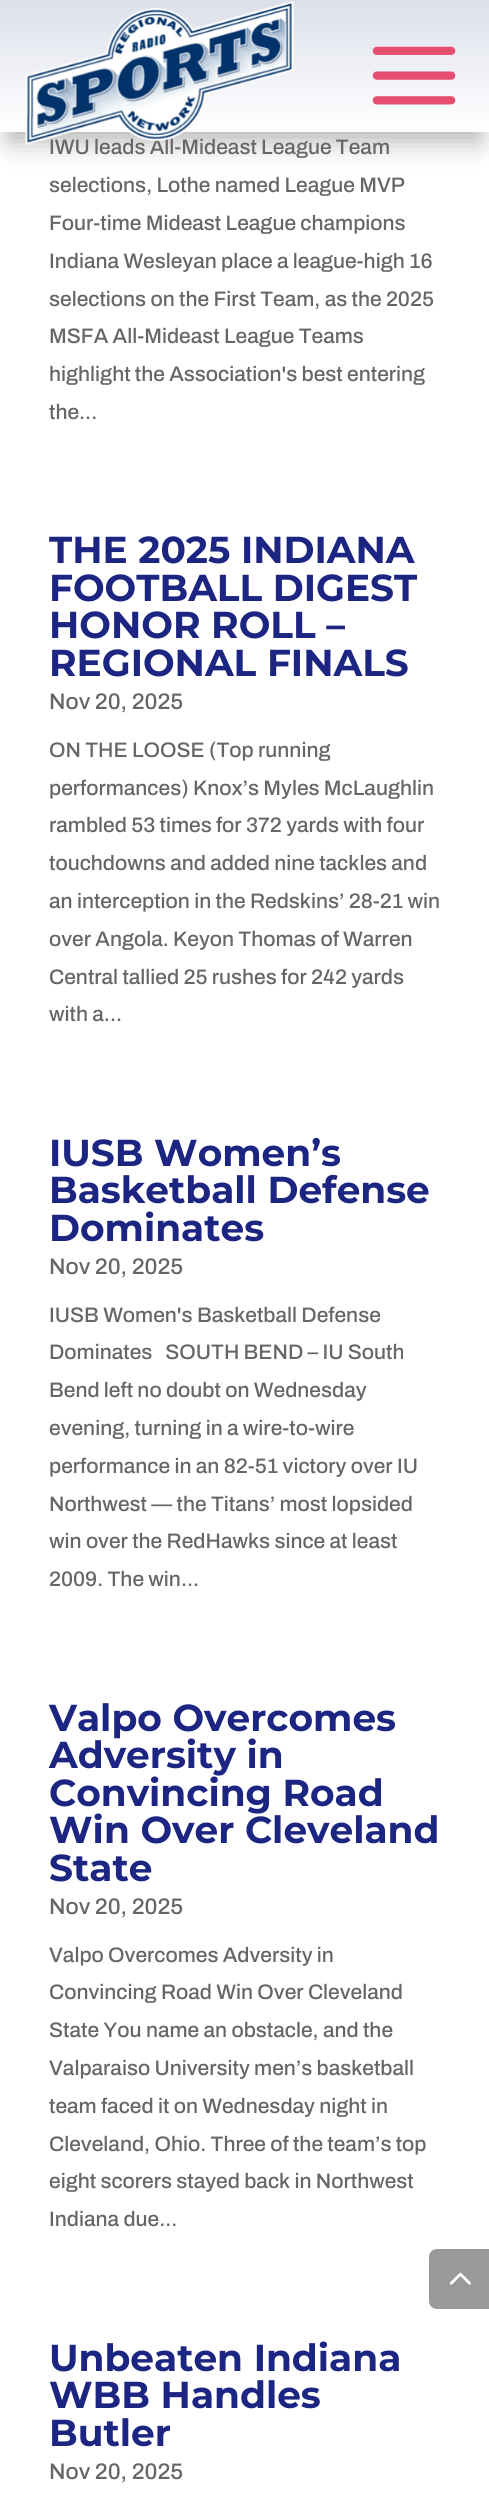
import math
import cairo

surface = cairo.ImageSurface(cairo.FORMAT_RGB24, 489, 2495)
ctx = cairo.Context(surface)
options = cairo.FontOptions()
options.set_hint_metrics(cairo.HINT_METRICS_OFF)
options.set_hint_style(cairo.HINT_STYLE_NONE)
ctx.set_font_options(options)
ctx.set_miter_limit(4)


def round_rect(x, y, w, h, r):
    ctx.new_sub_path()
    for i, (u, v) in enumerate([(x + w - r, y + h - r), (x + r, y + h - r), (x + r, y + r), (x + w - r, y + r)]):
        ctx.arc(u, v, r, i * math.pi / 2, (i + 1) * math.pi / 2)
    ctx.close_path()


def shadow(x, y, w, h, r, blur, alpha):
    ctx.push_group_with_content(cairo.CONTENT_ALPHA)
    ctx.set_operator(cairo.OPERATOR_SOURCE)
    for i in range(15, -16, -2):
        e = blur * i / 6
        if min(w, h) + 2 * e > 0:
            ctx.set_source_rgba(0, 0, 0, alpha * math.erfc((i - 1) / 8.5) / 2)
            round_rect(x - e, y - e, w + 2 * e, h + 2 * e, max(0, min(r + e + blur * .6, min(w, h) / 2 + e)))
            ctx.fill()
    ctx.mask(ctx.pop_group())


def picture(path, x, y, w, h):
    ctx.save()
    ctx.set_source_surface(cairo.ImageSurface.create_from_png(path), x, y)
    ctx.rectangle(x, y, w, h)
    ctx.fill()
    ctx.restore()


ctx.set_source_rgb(1, 1, 1)
ctx.paint()
ctx.set_source_rgb(0, 0, 0)
shadow(9, 27, 471, 114, 0, 13.5, 0.3)
gradient = cairo.LinearGradient(245, 0, 245, 132)
gradient.add_color_stop_rgba(0, 0.863, 0.878, 0.918, 1)
gradient.add_color_stop_rgba(0.99, 1, 1, 1, 1)
ctx.set_source(gradient)
ctx.rectangle(0, 0, 489, 132)
ctx.fill()
ctx.select_font_face("Archivo Medium")
ctx.set_font_size(21)
ctx.set_source_rgb(0.4, 0.4, 0.4)
ctx.move_to(49, 154)
ctx.show_text("IWU leads All-Mideast League Team")
picture("img1.png", 25, 1, 269, 144)
picture("img2.png", 372, 46, 84, 59)
ctx.move_to(49, 192)
ctx.show_text("selections, Lothe named League MVP")
ctx.move_to(49, 230)
ctx.show_text("Four-time Mideast League champions")
ctx.move_to(49, 268)
ctx.show_text("Indiana Wesleyan place a league-high 16")
ctx.move_to(49, 306)
ctx.show_text("selections on the First Team, as the 2025")
ctx.move_to(49, 343)
ctx.show_text("MSFA All-Mideast League Teams")
ctx.move_to(49, 381)
ctx.show_text("highlight the Association's best entering")
ctx.move_to(49, 419)
ctx.show_text("the...")
ctx.select_font_face("Montserrat", cairo.FONT_SLANT_NORMAL, cairo.FONT_WEIGHT_BOLD)
ctx.set_font_size(37.5)
ctx.set_source_rgb(0.11, 0.145, 0.51)
ctx.move_to(49, 563)
ctx.show_text("THE 2025 INDIANA")
ctx.move_to(49, 601)
ctx.show_text("FOOTBALL DIGEST")
ctx.move_to(49, 638)
ctx.show_text("HONOR ROLL –")
ctx.move_to(49, 676)
ctx.show_text("REGIONAL FINALS")
ctx.select_font_face("Archivo Medium")
ctx.set_font_size(22.5)
ctx.set_source_rgb(0.4, 0.4, 0.4)
ctx.move_to(49, 709)
ctx.show_text("Nov 20, 2025")
ctx.set_font_size(21)
ctx.move_to(49, 757)
ctx.show_text("ON THE LOOSE (Top running")
ctx.move_to(49, 795)
ctx.show_text("performances) Knox’s Myles McLaughlin")
ctx.move_to(49, 832)
ctx.show_text("rambled 53 times for 372 yards with four")
ctx.move_to(49, 870)
ctx.show_text("touchdowns and added nine tackles and")
ctx.move_to(49, 908)
ctx.show_text("an interception in the Redskins’ 28-21 win")
ctx.move_to(49, 946)
ctx.show_text("over Angola. Keyon Thomas of Warren")
ctx.move_to(49, 984)
ctx.show_text("Central tallied 25 rushes for 242 yards")
ctx.move_to(49, 1021)
ctx.show_text("with a...")
ctx.select_font_face("Montserrat", cairo.FONT_SLANT_NORMAL, cairo.FONT_WEIGHT_BOLD)
ctx.set_font_size(37.5)
ctx.set_source_rgb(0.11, 0.145, 0.51)
ctx.move_to(49, 1166)
ctx.show_text("IUSB Women’s")
ctx.move_to(49, 1203)
ctx.show_text("Basketball Defense")
ctx.move_to(49, 1241)
ctx.show_text("Dominates")
ctx.select_font_face("Archivo Medium")
ctx.set_font_size(22.5)
ctx.set_source_rgb(0.4, 0.4, 0.4)
ctx.move_to(49, 1274)
ctx.show_text("Nov 20, 2025")
ctx.set_font_size(21)
ctx.move_to(49, 1322)
ctx.show_text("IUSB Women's Basketball Defense")
ctx.move_to(49, 1359)
ctx.show_text("Dominates   SOUTH BEND – IU South")
ctx.move_to(49, 1397)
ctx.show_text("Bend left no doubt on Wednesday")
ctx.move_to(49, 1435)
ctx.show_text("evening, turning in a wire-to-wire")
ctx.move_to(49, 1473)
ctx.show_text("performance in an 82-51 victory over IU")
ctx.move_to(49, 1511)
ctx.show_text("Northwest — the Titans’ most lopsided")
ctx.move_to(49, 1548)
ctx.show_text("win over the RedHawks since at least")
ctx.move_to(49, 1586)
ctx.show_text("2009. The win...")
ctx.select_font_face("Montserrat", cairo.FONT_SLANT_NORMAL, cairo.FONT_WEIGHT_BOLD)
ctx.set_font_size(37.5)
ctx.set_source_rgb(0.11, 0.145, 0.51)
ctx.move_to(49, 1731)
ctx.show_text("Valpo Overcomes")
ctx.move_to(49, 1768)
ctx.show_text("Adversity in")
ctx.move_to(49, 1806)
ctx.show_text("Convincing Road")
ctx.move_to(49, 1843)
ctx.show_text("Win Over Cleveland")
ctx.move_to(49, 1881)
ctx.show_text("State")
ctx.select_font_face("Archivo Medium")
ctx.set_font_size(22.5)
ctx.set_source_rgb(0.4, 0.4, 0.4)
ctx.move_to(49, 1914)
ctx.show_text("Nov 20, 2025")
ctx.set_font_size(21)
ctx.move_to(49, 1962)
ctx.show_text("Valpo Overcomes Adversity in")
ctx.move_to(49, 1999)
ctx.show_text("Convincing Road Win Over Cleveland")
ctx.move_to(49, 2037)
ctx.show_text("State You name an obstacle, and the")
ctx.move_to(49, 2075)
ctx.show_text("Valparaiso University men’s basketball")
ctx.move_to(49, 2113)
ctx.show_text("team faced it on Wednesday night in")
ctx.move_to(49, 2151)
ctx.show_text("Cleveland, Ohio. Three of the team’s top")
ctx.move_to(49, 2188)
ctx.show_text("eight scorers stayed back in Northwest")
ctx.move_to(49, 2226)
ctx.show_text("Indiana due...")
ctx.select_font_face("Montserrat", cairo.FONT_SLANT_NORMAL, cairo.FONT_WEIGHT_BOLD)
ctx.set_font_size(37.5)
ctx.set_source_rgb(0.11, 0.145, 0.51)
ctx.move_to(49, 2371)
ctx.show_text("Unbeaten Indiana")
ctx.move_to(49, 2408)
ctx.show_text("WBB Handles")
ctx.move_to(49, 2446)
ctx.show_text("Butler")
ctx.select_font_face("Archivo Medium")
ctx.set_font_size(22.5)
ctx.set_source_rgb(0.4, 0.4, 0.4)
ctx.move_to(49, 2479)
ctx.show_text("Nov 20, 2025")
ctx.set_source_rgb(0.6, 0.6, 0.6)
ctx.new_path()
ctx.move_to(437, 2249)
ctx.line_to(489, 2249)
ctx.line_to(489, 2309)
ctx.line_to(437, 2309)
ctx.curve_to(432.5, 2309, 429, 2305.5, 429, 2301)
ctx.line_to(429, 2257)
ctx.curve_to(429, 2252.5, 432.5, 2249, 437, 2249)
ctx.close_path()
ctx.fill()
picture("img3.png", 449, 2272, 22, 13)
surface.write_to_png("page.png")
